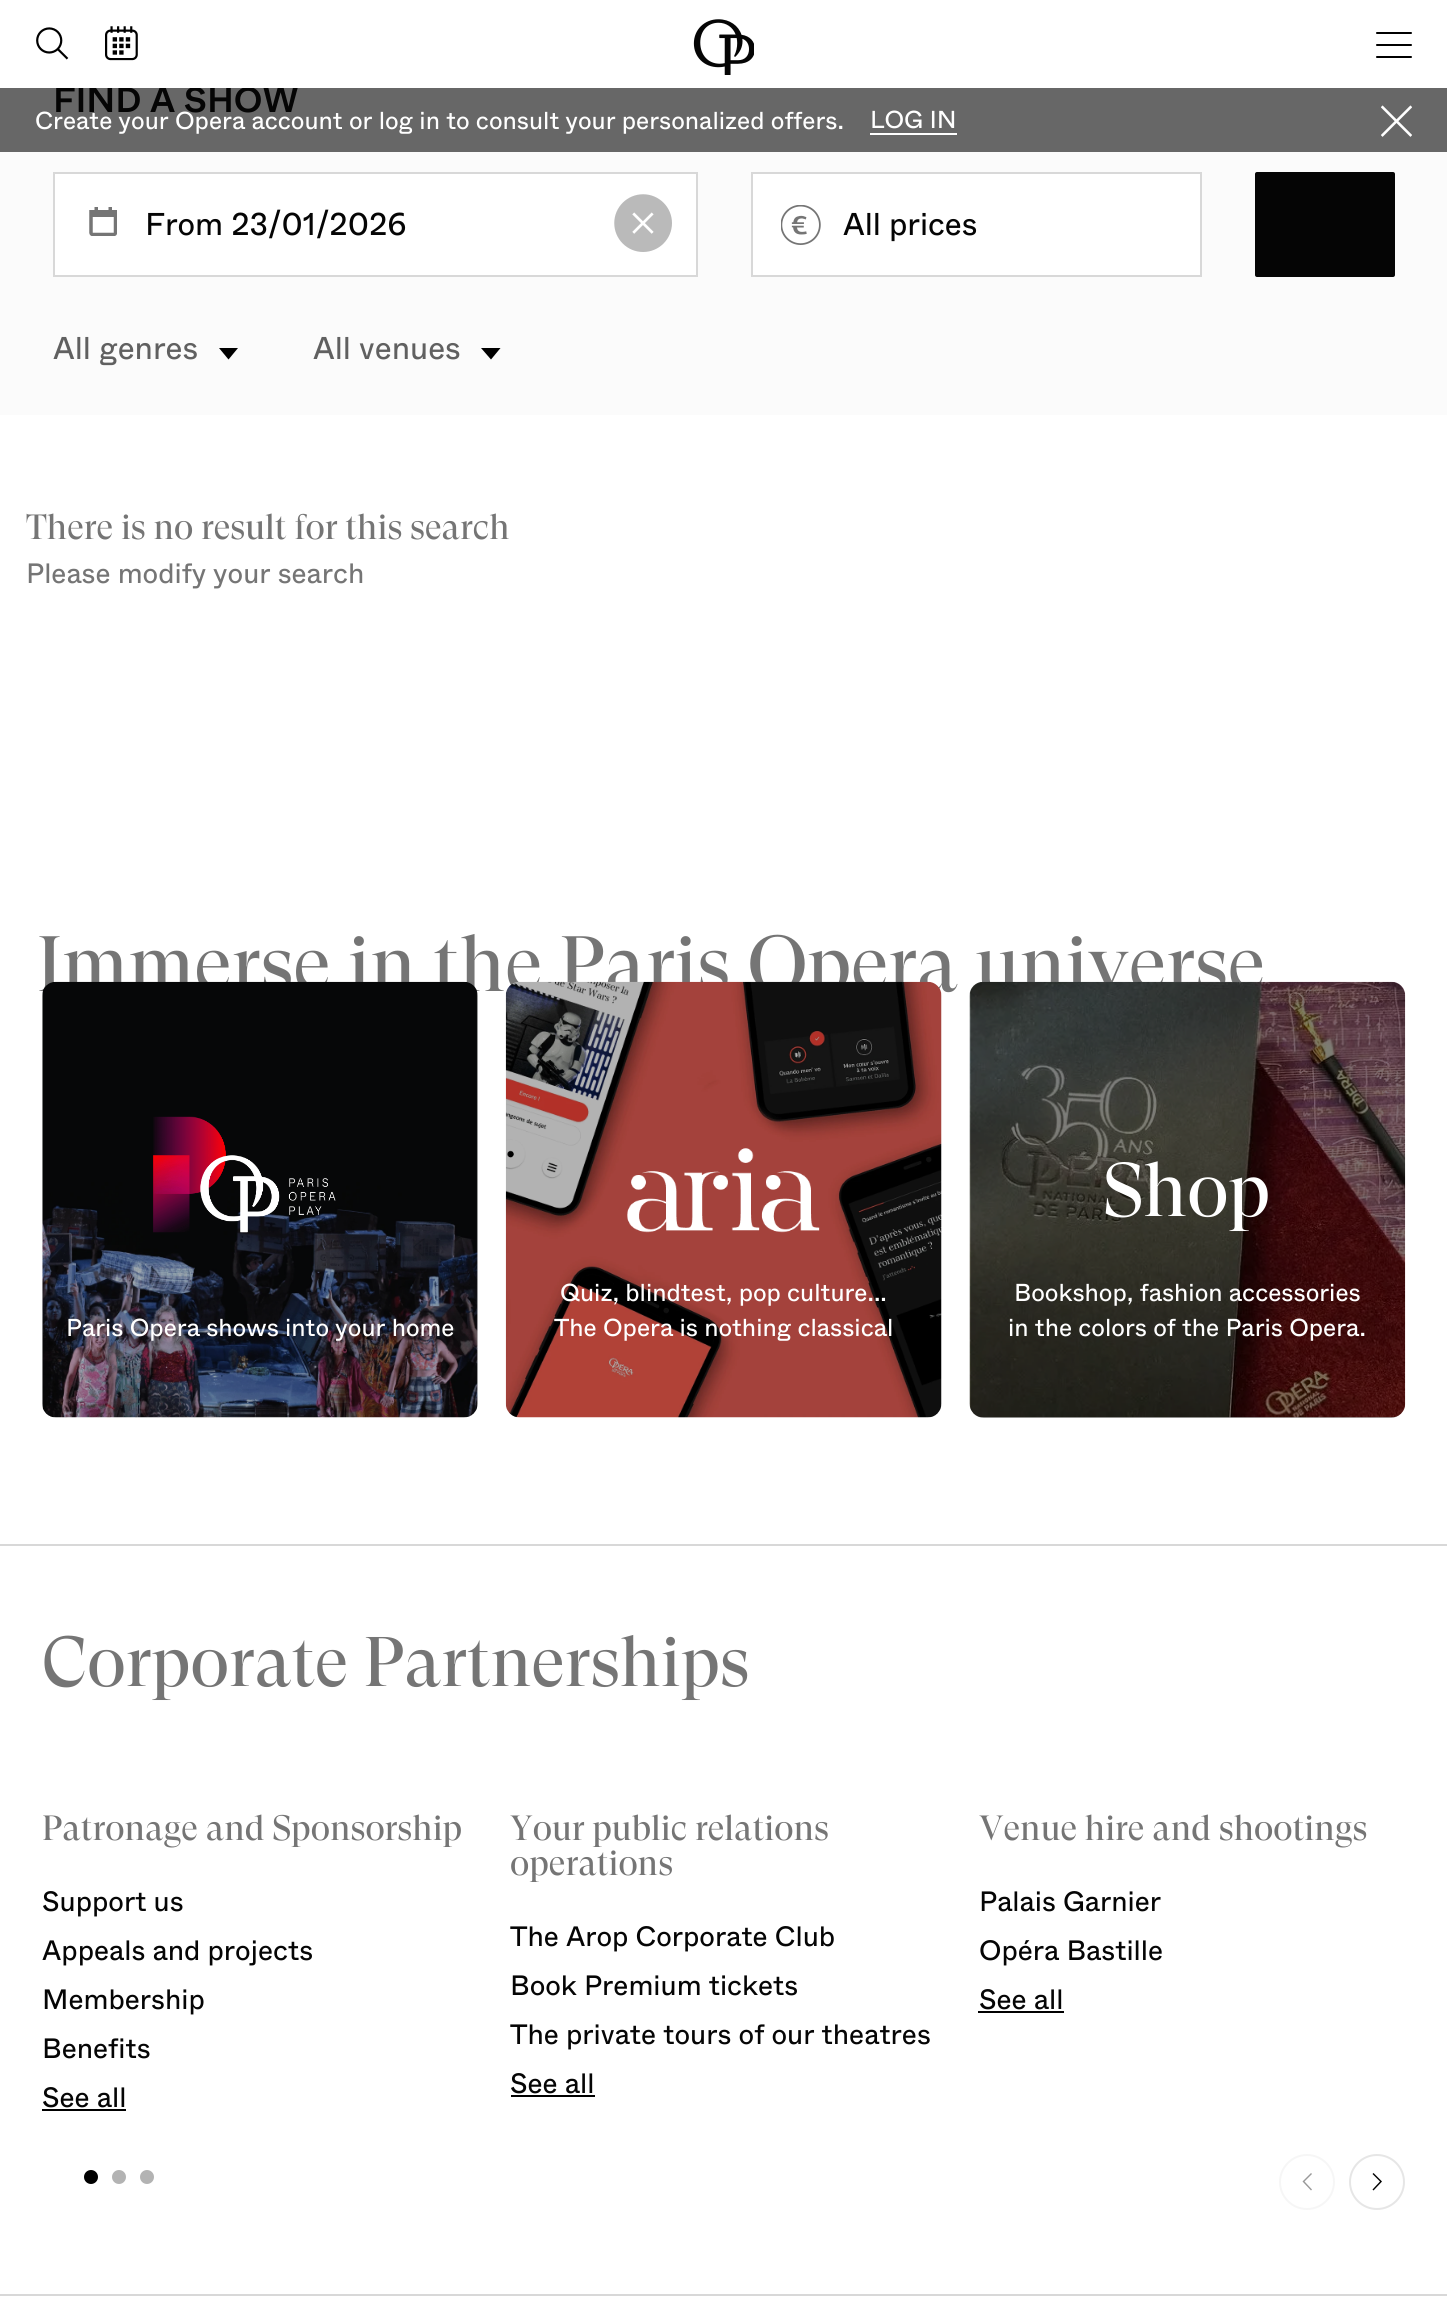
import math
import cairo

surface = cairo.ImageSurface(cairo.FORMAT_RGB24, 1447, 2297)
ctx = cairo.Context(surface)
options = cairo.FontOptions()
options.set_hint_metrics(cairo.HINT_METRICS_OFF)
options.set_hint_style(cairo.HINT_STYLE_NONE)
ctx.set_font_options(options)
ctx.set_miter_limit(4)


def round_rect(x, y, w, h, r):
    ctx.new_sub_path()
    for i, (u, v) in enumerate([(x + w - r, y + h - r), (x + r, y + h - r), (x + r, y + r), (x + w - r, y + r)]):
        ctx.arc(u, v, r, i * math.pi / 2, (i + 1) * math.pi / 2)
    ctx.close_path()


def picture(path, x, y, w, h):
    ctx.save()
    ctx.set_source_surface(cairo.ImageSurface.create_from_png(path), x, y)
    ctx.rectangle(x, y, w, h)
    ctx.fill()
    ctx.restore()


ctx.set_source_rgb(1, 1, 1)
ctx.paint()
ctx.set_source_rgb(0.984, 0.984, 0.984)
ctx.rectangle(0, 88, 1447, 327)
ctx.fill()
ctx.select_font_face("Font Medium")
ctx.set_font_size(35)
ctx.set_source_rgb(0.02, 0.02, 0.02)
ctx.move_to(53, 112)
ctx.show_text("FIND A SHOW")
ctx.set_source_rgb(1, 1, 1)
ctx.rectangle(55, 87, 243, 1)
ctx.fill()
picture("img1.png", 36, 27, 33, 33)
picture("img2.png", 105, 26, 33, 35)
picture("img3.png", 693, 19, 61, 56)
ctx.set_source_rgb(0, 0, 0)
round_rect(1376, 44, 36, 2, 1)
ctx.fill()
round_rect(1376, 32, 36, 2, 1)
ctx.fill()
round_rect(1376, 56, 36, 2, 1)
ctx.fill()
ctx.set_source_rgb(1, 1, 1)
ctx.rectangle(55, 174, 641, 101)
ctx.fill()
picture("img4.png", 89, 207, 28, 29)
ctx.rectangle(54, 173, 643, 103)
ctx.set_source_rgb(0.847, 0.847, 0.847)
ctx.stroke()
ctx.select_font_face("Font")
ctx.set_font_size(31.5)
ctx.set_source_rgb(0.02, 0.02, 0.02)
ctx.move_to(145, 235)
ctx.show_text("From 23/01/2026")
picture("img5.png", 614, 194, 58, 58)
ctx.set_source_rgb(1, 1, 1)
ctx.rectangle(753, 174, 447, 101)
ctx.fill()
picture("img6.png", 781, 205, 40, 40)
ctx.rectangle(752, 173, 449, 103)
ctx.set_source_rgb(0.847, 0.847, 0.847)
ctx.stroke()
ctx.set_source_rgb(0.02, 0.02, 0.02)
ctx.move_to(843, 235)
ctx.show_text("All prices")
round_rect(1255, 172, 140, 105, 2)
ctx.fill()
ctx.set_source_rgb(0.376, 0.376, 0.376)
ctx.move_to(53, 359)
ctx.show_text("All genres")
ctx.set_source_rgb(0, 0, 0)
ctx.new_path()
ctx.move_to(238, 348)
ctx.line_to(228.5, 359.5)
ctx.line_to(219, 348)
ctx.fill()
ctx.set_source_rgb(0.376, 0.376, 0.376)
ctx.move_to(313, 359)
ctx.show_text("All venues")
ctx.set_source_rgb(0, 0, 0)
ctx.new_path()
ctx.move_to(500.5, 348)
ctx.line_to(491, 359.5)
ctx.line_to(481, 348)
ctx.fill()
ctx.select_font_face("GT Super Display")
ctx.set_font_size(35)
ctx.set_source_rgb(0.459, 0.459, 0.459)
ctx.move_to(26, 539)
ctx.show_text("There is no result for this search")
ctx.select_font_face("Font")
ctx.set_font_size(28)
ctx.move_to(26, 583)
ctx.show_text("Please modify your search")
ctx.set_source_rgba(0.02, 0.02, 0.02, 0.6)
ctx.rectangle(0, 88, 1447, 64)
ctx.fill()
ctx.set_font_size(24.5)
ctx.set_source_rgb(1, 1, 1)
ctx.move_to(35, 129)
ctx.show_text("Create your Opera account or log in to consult your personalized offers.")
ctx.rectangle(870, 133, 87, 2)
ctx.fill()
ctx.move_to(870, 128)
ctx.show_text("LOG IN")
picture("img7.png", 1381, 105, 31, 32)
ctx.select_font_face("GT Super Display")
ctx.set_font_size(78.2)
ctx.set_source_rgb(0.459, 0.459, 0.459)
ctx.move_to(37, 991)
ctx.show_text("Immerse in the Paris Opera universe")
picture("img8.png", 42, 981, 436, 437)
picture("img9.png", 153, 1116, 183, 117)
ctx.select_font_face("Font")
ctx.set_font_size(24.5)
ctx.set_source_rgb(1, 1, 1)
ctx.move_to(66, 1336)
ctx.show_text("Paris Opera shows into your home")
picture("img10.png", 505, 981, 437, 437)
picture("img11.png", 627, 1148, 193, 85)
ctx.move_to(560, 1301)
ctx.show_text("Quiz, blindtest, pop culture...")
ctx.move_to(554, 1336)
ctx.show_text("The Opera is nothing classical")
picture("img12.png", 969, 981, 437, 437)
ctx.save()
round_rect(970, 982, 435, 436, 14)
ctx.clip()
ctx.set_source_rgba(0, 0, 0, 0.3)
ctx.new_path()
ctx.move_to(971, 982)
ctx.line_to(1391, 982)
ctx.curve_to(1398.5, 982, 1405, 988.5, 1405, 996)
ctx.line_to(1405, 1404)
ctx.curve_to(1405, 1411.5, 1398.5, 1418, 1391, 1418)
ctx.line_to(971, 1418)
ctx.close_path()
ctx.fill()
ctx.restore()
ctx.select_font_face("GT Super Display")
ctx.set_font_size(75)
ctx.move_to(1103, 1216)
ctx.show_text("Shop")
ctx.select_font_face("Font")
ctx.set_font_size(24.5)
ctx.move_to(1014, 1301)
ctx.show_text("Bookshop, fashion accessories")
ctx.move_to(1008, 1336)
ctx.show_text("in the colors of the Paris Opera.")
ctx.set_source_rgb(0.847, 0.847, 0.847)
ctx.rectangle(0, 1544, 1447, 2)
ctx.fill()
ctx.select_font_face("GT Super Display")
ctx.set_font_size(70)
ctx.set_source_rgb(0.459, 0.459, 0.459)
ctx.move_to(42, 1686)
ctx.show_text("Corporate Partnerships")
ctx.set_font_size(35)
ctx.move_to(42, 1840)
ctx.show_text("Patronage and Sponsorship")
ctx.select_font_face("Font")
ctx.set_font_size(28)
ctx.set_source_rgb(0.02, 0.02, 0.02)
ctx.move_to(42, 1911)
ctx.show_text("Support us")
ctx.move_to(42, 1960)
ctx.show_text("Appeals and projects")
ctx.move_to(42, 2009)
ctx.show_text("Membership")
ctx.move_to(42, 2058)
ctx.show_text("Benefits")
ctx.move_to(42, 2107)
ctx.show_text("See all")
ctx.set_source_rgb(0, 0, 0)
ctx.rectangle(42, 2109, 84, 2)
ctx.fill()
ctx.select_font_face("GT Super Display")
ctx.set_font_size(35)
ctx.set_source_rgb(0.459, 0.459, 0.459)
ctx.move_to(510, 1840)
ctx.show_text("Your public relations")
ctx.move_to(510, 1875)
ctx.show_text("operations")
ctx.select_font_face("Font")
ctx.set_font_size(28)
ctx.set_source_rgb(0.02, 0.02, 0.02)
ctx.move_to(510, 1946)
ctx.show_text("The Arop Corporate Club")
ctx.move_to(510, 1995)
ctx.show_text("Book Premium tickets")
ctx.move_to(510, 2044)
ctx.show_text("The private tours of our theatres")
ctx.move_to(510, 2093)
ctx.show_text("See all")
ctx.set_source_rgb(0, 0, 0)
ctx.rectangle(511, 2095, 84, 2)
ctx.fill()
ctx.select_font_face("GT Super Display")
ctx.set_font_size(35)
ctx.set_source_rgb(0.459, 0.459, 0.459)
ctx.move_to(979, 1840)
ctx.show_text("Venue hire and shootings")
ctx.select_font_face("Font")
ctx.set_font_size(28)
ctx.set_source_rgb(0.02, 0.02, 0.02)
ctx.move_to(979, 1911)
ctx.show_text("Palais Garnier")
ctx.move_to(979, 1960)
ctx.show_text("Opéra Bastille")
ctx.move_to(979, 2009)
ctx.show_text("See all")
ctx.set_source_rgb(0, 0, 0)
ctx.rectangle(978, 2011, 86, 2)
ctx.fill()
ctx.arc(91, 2177, 7, 0, 2 * math.pi)
ctx.fill()
ctx.set_source_rgb(0.702, 0.702, 0.702)
ctx.arc(119, 2177, 7, 0, 2 * math.pi)
ctx.fill()
ctx.arc(147, 2177, 7, 0, 2 * math.pi)
ctx.fill()
ctx.arc(1307, 2182, 27, 0, 2 * math.pi)
ctx.set_source_rgb(0.961, 0.961, 0.961)
ctx.stroke()
ctx.set_source_rgb(0.6, 0.6, 0.6)
ctx.new_path()
ctx.move_to(1311, 2190.5)
ctx.line_to(1312, 2189.5)
ctx.line_to(1304.5, 2181.5)
ctx.line_to(1312, 2174)
ctx.line_to(1311, 2173)
ctx.line_to(1302.5, 2181.5)
ctx.close_path()
ctx.fill()
ctx.arc(1377, 2182, 27, 0, 2 * math.pi)
ctx.set_source_rgb(0.902, 0.902, 0.902)
ctx.stroke()
ctx.set_source_rgb(0, 0, 0)
ctx.new_path()
ctx.move_to(1373.5, 2190.5)
ctx.line_to(1372.5, 2189.5)
ctx.line_to(1380, 2181.5)
ctx.line_to(1372.5, 2174)
ctx.line_to(1373.5, 2173)
ctx.line_to(1382, 2181.5)
ctx.close_path()
ctx.fill()
ctx.set_source_rgb(0.847, 0.847, 0.847)
ctx.rectangle(0, 2294, 1447, 2)
ctx.fill()
surface.write_to_png("page.png")
